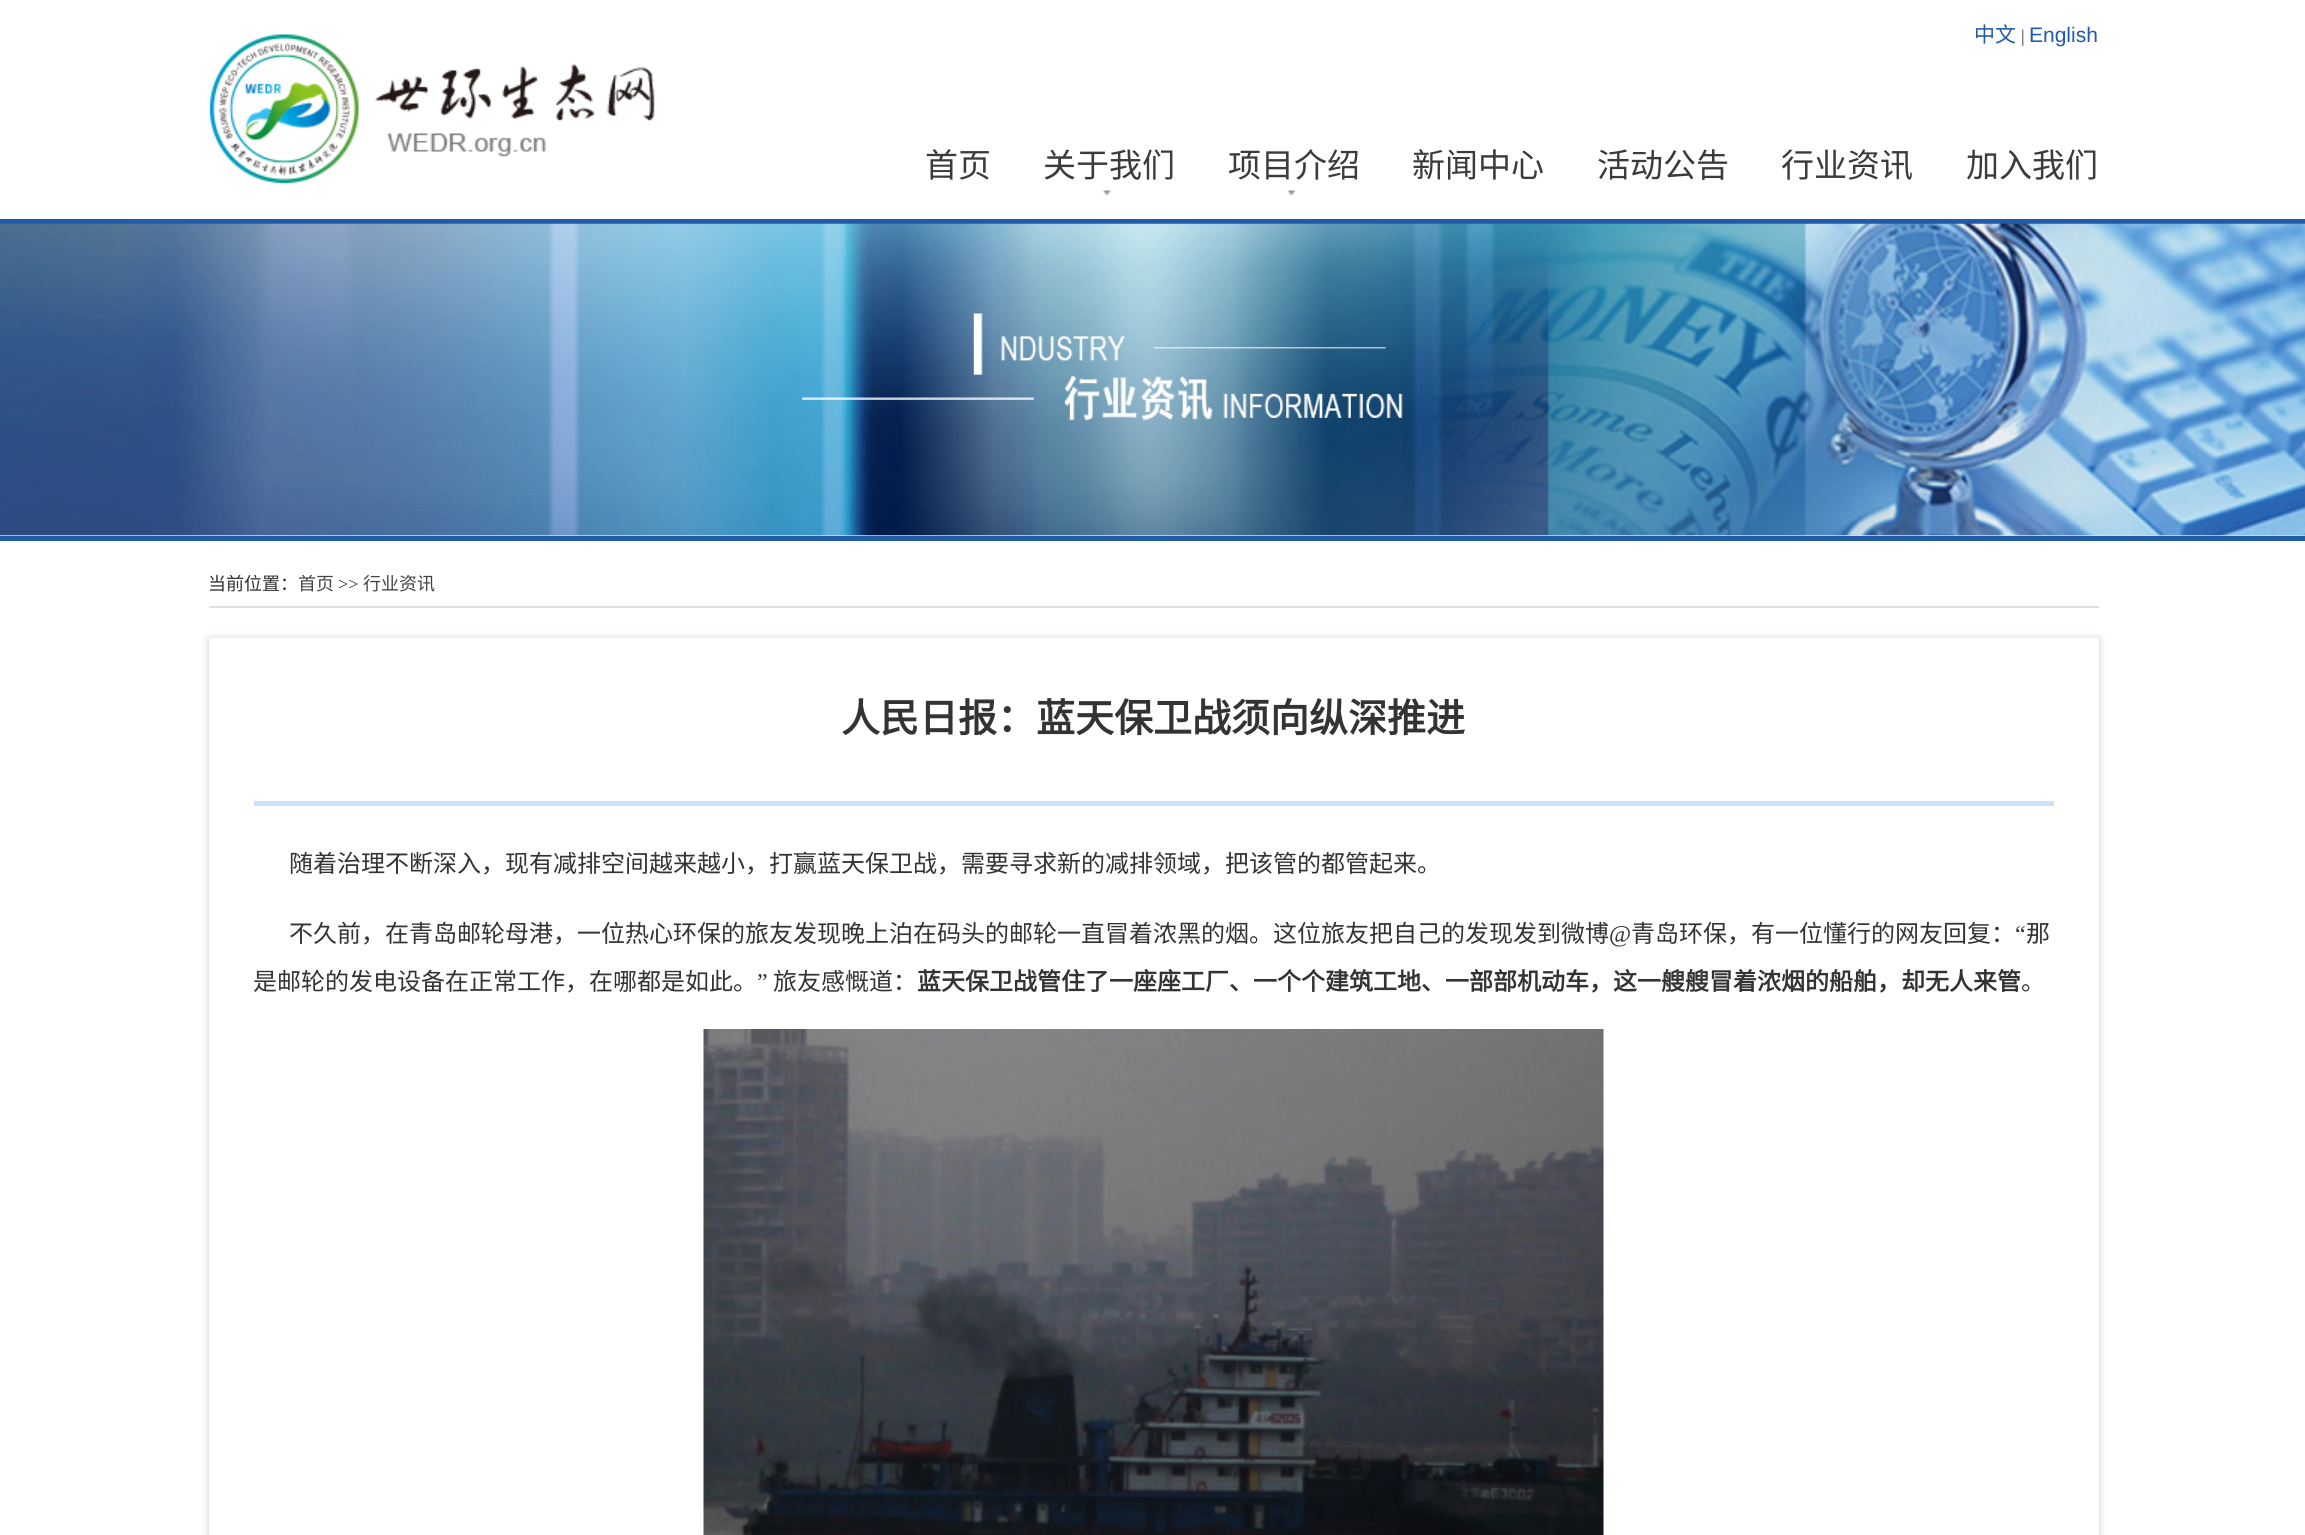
import math
import cairo

surface = cairo.ImageSurface(cairo.FORMAT_RGB24, 2305, 1535)
ctx = cairo.Context(surface)
options = cairo.FontOptions()
options.set_hint_metrics(cairo.HINT_METRICS_OFF)
options.set_hint_style(cairo.HINT_STYLE_NONE)
ctx.set_font_options(options)
ctx.set_miter_limit(4)


def round_rect(x, y, w, h, r):
    ctx.new_sub_path()
    for i, (u, v) in enumerate([(x + w - r, y + h - r), (x + r, y + h - r), (x + r, y + r), (x + w - r, y + r)]):
        ctx.arc(u, v, r, i * math.pi / 2, (i + 1) * math.pi / 2)
    ctx.close_path()


def shadow(x, y, w, h, r, blur, alpha):
    ctx.push_group_with_content(cairo.CONTENT_ALPHA)
    ctx.set_operator(cairo.OPERATOR_SOURCE)
    for i in range(15, -16, -2):
        e = blur * i / 6
        if min(w, h) + 2 * e > 0:
            ctx.set_source_rgba(0, 0, 0, alpha * math.erfc((i - 1) / 8.5) / 2)
            round_rect(x - e, y - e, w + 2 * e, h + 2 * e, max(0, min(r + e + blur * .6, min(w, h) / 2 + e)))
            ctx.fill()
    ctx.mask(ctx.pop_group())


def picture(path, x, y, w, h):
    ctx.save()
    ctx.set_source_surface(cairo.ImageSurface.create_from_png(path), x, y)
    ctx.rectangle(x, y, w, h)
    ctx.fill()
    ctx.restore()


ctx.set_source_rgb(1, 1, 1)
ctx.paint()
picture("img1.png", 209, 34, 446, 150)
ctx.select_font_face("Noto Sans CJK SC")
ctx.set_font_size(21)
ctx.set_source_rgb(0.129, 0.353, 0.651)
ctx.move_to(1974, 42)
ctx.show_text("中文")
ctx.select_font_face("Liberation Serif")
ctx.set_font_size(18)
ctx.set_source_rgb(0.2, 0.2, 0.2)
ctx.move_to(2021, 42)
ctx.show_text("|")
ctx.select_font_face("Liberation Sans")
ctx.set_font_size(21)
ctx.set_source_rgb(0.129, 0.353, 0.651)
ctx.move_to(2029, 42)
ctx.show_text("English")
ctx.select_font_face("Noto Sans CJK SC")
ctx.set_font_size(33)
ctx.set_source_rgb(0.231, 0.231, 0.231)
ctx.move_to(925, 177)
ctx.show_text("首页")
picture("img2.png", 1102, 190, 10, 6)
ctx.move_to(1043, 177)
ctx.show_text("关于我们")
picture("img3.png", 1287, 190, 9, 6)
ctx.move_to(1228, 177)
ctx.show_text("项目介绍")
ctx.move_to(1412, 177)
ctx.show_text("新闻中心")
ctx.move_to(1597, 177)
ctx.show_text("活动公告")
ctx.move_to(1781, 177)
ctx.show_text("行业资讯")
ctx.move_to(1966, 177)
ctx.show_text("加入我们")
ctx.set_source_rgb(0.878, 0.878, 0.878)
ctx.rectangle(0, 535, 2305, 1)
ctx.fill()
ctx.set_source_rgb(0.129, 0.353, 0.651)
ctx.rectangle(0, 219, 2305, 5)
ctx.fill()
ctx.rectangle(0, 536, 2305, 5)
ctx.fill()
picture("img4.png", 0, 223, 2305, 313)
ctx.set_source_rgb(0.878, 0.878, 0.878)
ctx.rectangle(209, 606, 1890, 2)
ctx.fill()
ctx.set_font_size(18)
ctx.set_source_rgb(0.2, 0.2, 0.2)
ctx.move_to(208, 590)
ctx.show_text("当前位置：")
ctx.set_source_rgb(0.267, 0.267, 0.267)
ctx.move_to(298, 590)
ctx.show_text("首页")
ctx.select_font_face("Liberation Serif")
ctx.set_source_rgb(0.2, 0.2, 0.2)
ctx.move_to(338, 590)
ctx.show_text(">>")
ctx.select_font_face("Noto Sans CJK SC")
ctx.set_source_rgb(0.267, 0.267, 0.267)
ctx.move_to(363, 590)
ctx.show_text("行业资讯")
ctx.save()
ctx.set_fill_rule(cairo.FILL_RULE_EVEN_ODD)
ctx.new_path()
ctx.move_to(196, 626)
ctx.line_to(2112, 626)
ctx.line_to(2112, 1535)
ctx.line_to(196, 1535)
ctx.close_path()
ctx.move_to(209, 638)
ctx.line_to(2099, 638)
ctx.line_to(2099, 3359)
ctx.line_to(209, 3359)
ctx.close_path()
ctx.clip()
ctx.set_source_rgb(0.8, 0.8, 0.8)
shadow(209, 639, 1890, 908, 0, 4, 1)
ctx.restore()
ctx.select_font_face("Noto Sans CJK SC", cairo.FONT_SLANT_NORMAL, cairo.FONT_WEIGHT_BOLD)
ctx.set_font_size(39)
ctx.set_source_rgb(0.2, 0.2, 0.2)
ctx.move_to(841, 732)
ctx.show_text("人民日报：蓝天保卫战须向纵深推进")
ctx.set_source_rgb(0.792, 0.878, 0.988)
ctx.rectangle(254, 801, 1800, 5)
ctx.fill()
ctx.select_font_face("Noto Sans CJK SC")
ctx.set_font_size(24)
ctx.set_source_rgb(0.2, 0.2, 0.2)
ctx.move_to(289, 872)
ctx.show_text("随着治理不断深入，现有减排空间越来越小，打赢蓝天保卫战，需要寻求新的减排领域，把该管的都管起来。")
ctx.move_to(289, 942)
ctx.show_text("不久前，在青岛邮轮母港，一位热心环保的旅友发现晚上泊在码头的邮轮一直冒着浓黑的烟。这位旅友把自己的发现发到微博")
ctx.select_font_face("Liberation Serif")
ctx.move_to(1609, 942)
ctx.show_text("@")
ctx.select_font_face("Noto Sans CJK SC")
ctx.move_to(1631, 942)
ctx.show_text("青岛环保，有一位懂行的网友回复：")
ctx.select_font_face("Liberation Serif")
ctx.move_to(2015, 942)
ctx.show_text("“")
ctx.select_font_face("Noto Sans CJK SC")
ctx.move_to(2026, 942)
ctx.show_text("那")
ctx.move_to(253, 990)
ctx.show_text("是邮轮的发电设备在正常工作，在哪都是如此。")
ctx.select_font_face("Liberation Serif")
ctx.move_to(757, 990)
ctx.show_text("”")
ctx.select_font_face("Noto Sans CJK SC")
ctx.move_to(773, 990)
ctx.show_text("旅友感慨道：")
ctx.select_font_face("Noto Sans CJK SC", cairo.FONT_SLANT_NORMAL, cairo.FONT_WEIGHT_BOLD)
ctx.move_to(917, 990)
ctx.show_text("蓝天保卫战管住了一座座工厂、一个个建筑工地、一部部机动车，这一艘艘冒着浓烟的船舶，却无人来管")
ctx.select_font_face("Noto Sans CJK SC")
ctx.move_to(2021, 990)
ctx.show_text("。")
picture("img5.png", 703, 1029, 901, 506)
surface.write_to_png("page.png")
